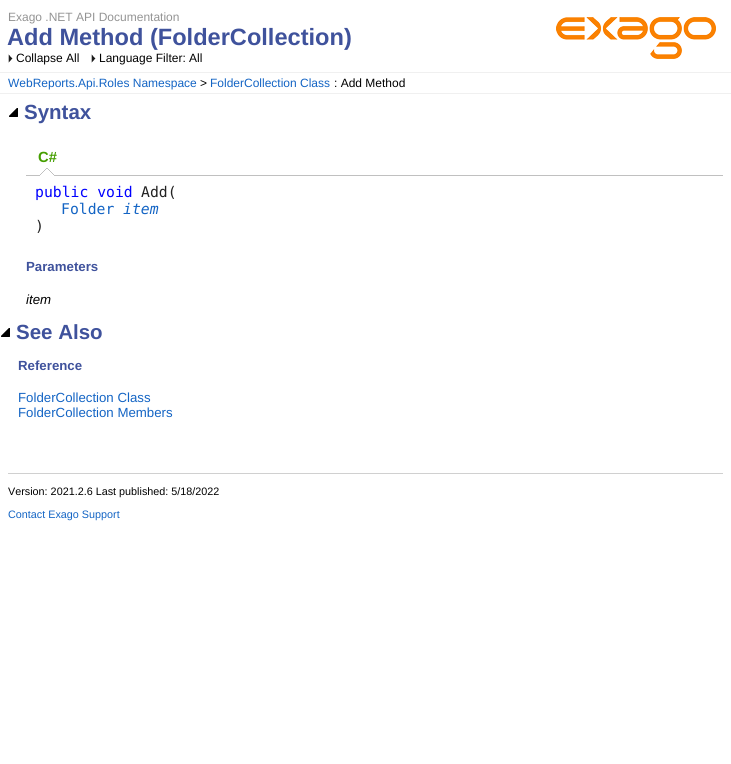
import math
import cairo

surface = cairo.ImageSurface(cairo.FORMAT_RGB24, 731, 764)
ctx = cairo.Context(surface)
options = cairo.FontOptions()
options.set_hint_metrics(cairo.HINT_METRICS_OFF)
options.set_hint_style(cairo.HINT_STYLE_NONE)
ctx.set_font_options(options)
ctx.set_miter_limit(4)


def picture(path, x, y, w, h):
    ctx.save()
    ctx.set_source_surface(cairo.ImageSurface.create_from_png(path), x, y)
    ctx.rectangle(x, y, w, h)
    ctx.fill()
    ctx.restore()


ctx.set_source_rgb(1, 1, 1)
ctx.paint()
ctx.select_font_face("Liberation Sans")
ctx.set_font_size(12)
ctx.set_source_rgb(0.58, 0.58, 0.58)
ctx.move_to(8, 21)
ctx.show_text("Exago .NET API Documentation")
picture("img1.png", 556, 17, 160, 42)
ctx.select_font_face("Liberation Sans", cairo.FONT_SLANT_NORMAL, cairo.FONT_WEIGHT_BOLD)
ctx.set_font_size(23.6)
ctx.set_source_rgb(0.247, 0.322, 0.612)
ctx.move_to(7, 45)
ctx.show_text("Add Method (FolderCollection)")
picture("img2.png", 8, 54, 5, 9)
ctx.select_font_face("Liberation Sans")
ctx.set_font_size(12)
ctx.set_source_rgb(0, 0, 0)
ctx.move_to(16, 62)
ctx.show_text("Collapse All")
picture("img2.png", 91, 54, 5, 9)
ctx.move_to(99, 62)
ctx.show_text("Language Filter: All")
ctx.set_source_rgb(0.941, 0.941, 0.941)
ctx.rectangle(0, 72, 731, 1)
ctx.fill()
ctx.rectangle(0, 93, 731, 1)
ctx.fill()
ctx.set_source_rgb(0.075, 0.392, 0.769)
ctx.move_to(8, 87)
ctx.show_text("WebReports.Api.Roles Namespace")
ctx.set_source_rgb(0, 0, 0)
ctx.move_to(200, 87)
ctx.show_text(">")
ctx.set_source_rgb(0.075, 0.392, 0.769)
ctx.move_to(210, 87)
ctx.show_text("FolderCollection Class")
ctx.set_source_rgb(0, 0, 0)
ctx.move_to(334, 87)
ctx.show_text(": Add Method")
picture("img3.png", 9, 108, 9, 9)
ctx.select_font_face("Liberation Sans", cairo.FONT_SLANT_NORMAL, cairo.FONT_WEIGHT_BOLD)
ctx.set_font_size(20.5)
ctx.set_source_rgb(0.247, 0.322, 0.612)
ctx.move_to(24, 119)
ctx.show_text("Syntax")
ctx.set_source_rgb(0.753, 0.753, 0.753)
ctx.rectangle(26, 175, 697, 1)
ctx.fill()
picture("img4.png", 40, 168, 14, 8)
ctx.set_font_size(14.75)
ctx.set_source_rgb(0.271, 0.62, 0)
ctx.move_to(38, 162)
ctx.show_text("C#")
ctx.select_font_face("DejaVu Sans Mono")
ctx.set_source_rgb(0, 0, 1)
ctx.move_to(35, 197)
ctx.show_text("public void")
ctx.set_source_rgb(0.133, 0.133, 0.133)
ctx.move_to(141, 197)
ctx.show_text("Add(")
ctx.set_source_rgb(0.075, 0.392, 0.769)
ctx.move_to(61, 214)
ctx.show_text("Folder")
ctx.select_font_face("DejaVu Sans Mono", cairo.FONT_SLANT_ITALIC)
ctx.move_to(123, 214)
ctx.show_text("item")
ctx.select_font_face("DejaVu Sans Mono")
ctx.set_source_rgb(0.133, 0.133, 0.133)
ctx.move_to(35, 231)
ctx.show_text(")")
ctx.select_font_face("Liberation Sans", cairo.FONT_SLANT_NORMAL, cairo.FONT_WEIGHT_BOLD)
ctx.set_font_size(13.25)
ctx.set_source_rgb(0.247, 0.322, 0.612)
ctx.move_to(26, 271)
ctx.show_text("Parameters")
ctx.select_font_face("Liberation Sans", cairo.FONT_SLANT_ITALIC)
ctx.set_source_rgb(0, 0, 0)
ctx.move_to(26, 304)
ctx.show_text("item")
picture("img3.png", 1, 328, 9, 9)
ctx.select_font_face("Liberation Sans", cairo.FONT_SLANT_NORMAL, cairo.FONT_WEIGHT_BOLD)
ctx.set_font_size(20.5)
ctx.set_source_rgb(0.247, 0.322, 0.612)
ctx.move_to(16, 339)
ctx.show_text("See Also")
ctx.set_font_size(13.25)
ctx.move_to(18, 370)
ctx.show_text("Reference")
ctx.select_font_face("Liberation Sans")
ctx.set_source_rgb(0.075, 0.392, 0.769)
ctx.move_to(18, 402)
ctx.show_text("FolderCollection Class")
ctx.move_to(18, 417)
ctx.show_text("FolderCollection Members")
ctx.set_source_rgb(0.816, 0.816, 0.816)
ctx.rectangle(8, 473, 715, 1)
ctx.fill()
ctx.set_font_size(10.8)
ctx.set_source_rgb(0, 0, 0)
ctx.move_to(8, 495)
ctx.show_text("Version: 2021.2.6 Last published: 5/18/2022")
ctx.set_source_rgb(0.075, 0.392, 0.769)
ctx.move_to(8, 518)
ctx.show_text("Contact Exago Support")
surface.write_to_png("page.png")
